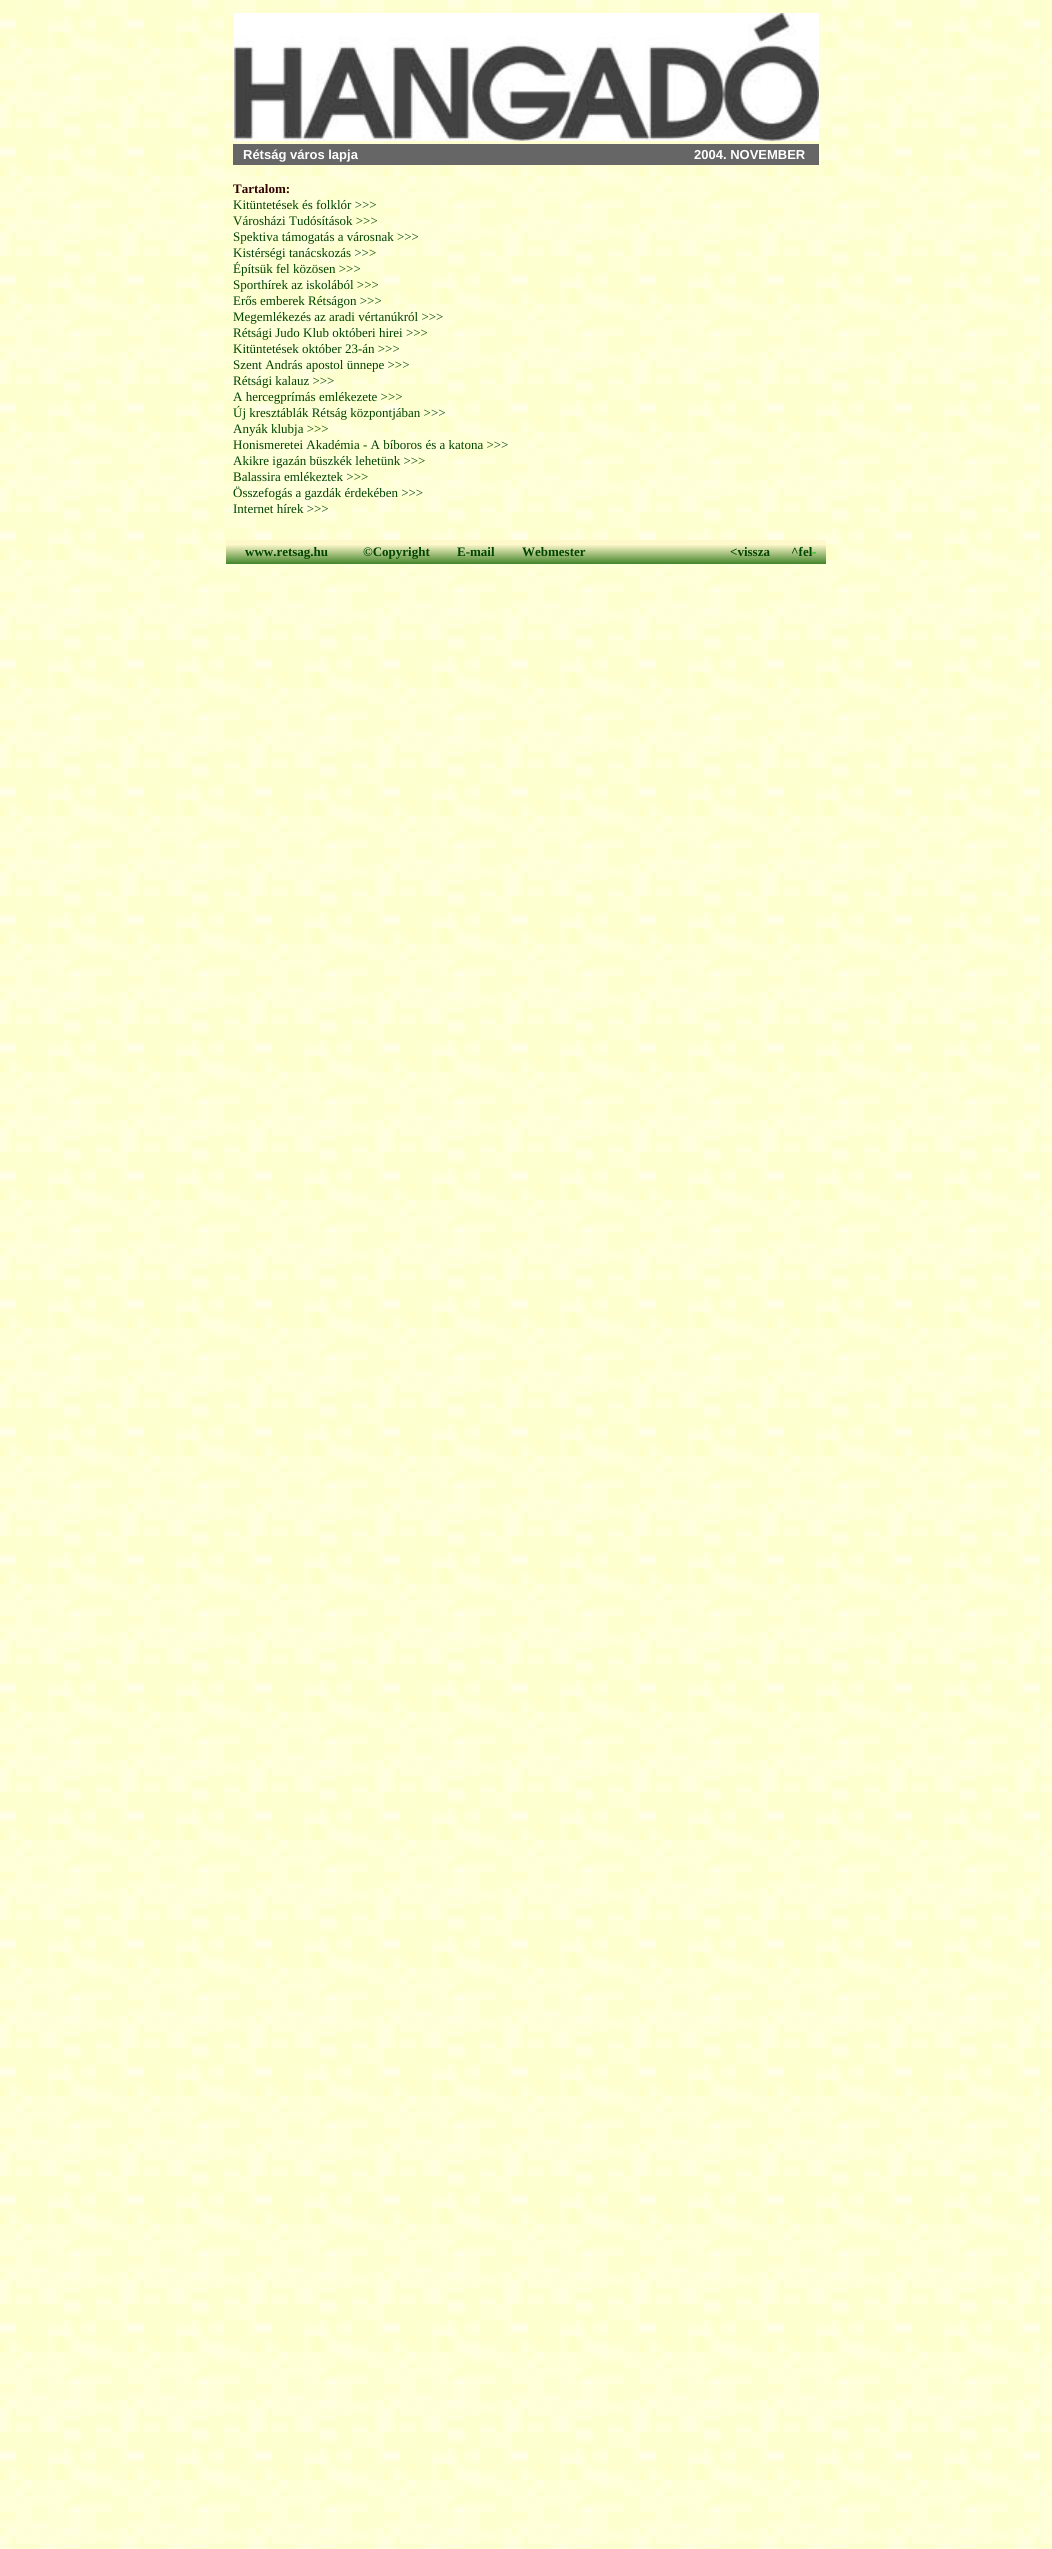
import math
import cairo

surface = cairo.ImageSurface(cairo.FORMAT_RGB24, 1052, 2549)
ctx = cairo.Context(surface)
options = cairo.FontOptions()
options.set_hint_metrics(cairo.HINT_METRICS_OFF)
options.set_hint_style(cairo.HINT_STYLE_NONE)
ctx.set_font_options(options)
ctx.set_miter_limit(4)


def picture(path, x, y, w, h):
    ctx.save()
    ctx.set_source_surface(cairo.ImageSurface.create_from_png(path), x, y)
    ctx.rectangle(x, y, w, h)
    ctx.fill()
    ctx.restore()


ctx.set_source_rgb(1, 1, 1)
ctx.paint()
picture("img1.png", 0, 0, 1052, 2549)
picture("img2.png", 234, 13, 585, 128)
ctx.set_source_rgb(0.4, 0.4, 0.4)
ctx.rectangle(233, 144, 586, 21)
ctx.fill()
ctx.select_font_face("Liberation Sans", cairo.FONT_SLANT_NORMAL, cairo.FONT_WEIGHT_BOLD)
ctx.set_font_size(13)
ctx.set_source_rgb(1, 1, 1)
ctx.move_to(243, 159)
ctx.show_text("Rétság város lapja")
ctx.move_to(694, 159)
ctx.show_text("2004. NOVEMBER")
ctx.select_font_face("Liberation Serif", cairo.FONT_SLANT_NORMAL, cairo.FONT_WEIGHT_BOLD)
ctx.set_source_rgb(0.2, 0, 0)
ctx.move_to(233, 193)
ctx.show_text("Tartalom:")
ctx.select_font_face("Liberation Serif")
ctx.set_source_rgb(0, 0.267, 0)
ctx.move_to(233, 209)
ctx.show_text("Kitüntetések és folklór >>>")
ctx.move_to(233, 225)
ctx.show_text("Városházi Tudósítások >>>")
ctx.move_to(233, 241)
ctx.show_text("Spektiva támogatás a városnak >>>")
ctx.move_to(233, 257)
ctx.show_text("Kistérségi tanácskozás >>>")
ctx.move_to(233, 273)
ctx.show_text("Építsük fel közösen >>>")
ctx.move_to(233, 289)
ctx.show_text("Sporthírek az iskolából >>>")
ctx.move_to(233, 305)
ctx.show_text("Erős emberek Rétságon >>>")
ctx.move_to(233, 321)
ctx.show_text("Megemlékezés az aradi vértanúkról >>>")
ctx.move_to(233, 337)
ctx.show_text("Rétsági Judo Klub októberi hirei >>>")
ctx.move_to(233, 353)
ctx.show_text("Kitüntetések október 23-án >>>")
ctx.move_to(233, 369)
ctx.show_text("Szent András apostol ünnepe >>>")
ctx.move_to(233, 385)
ctx.show_text("Rétsági kalauz >>>")
ctx.move_to(233, 401)
ctx.show_text("A hercegprímás emlékezete >>>")
ctx.move_to(233, 417)
ctx.show_text("Új kresztáblák Rétság központjában >>>")
ctx.move_to(233, 433)
ctx.show_text("Anyák klubja >>>")
ctx.move_to(233, 449)
ctx.show_text("Honismeretei Akadémia - A bíboros és a katona >>>")
ctx.move_to(233, 465)
ctx.show_text("Akikre igazán büszkék lehetünk >>>")
ctx.move_to(233, 481)
ctx.show_text("Balassira emlékeztek >>>")
ctx.move_to(233, 497)
ctx.show_text("Összefogás a gazdák érdekében >>>")
ctx.move_to(233, 513)
ctx.show_text("Internet hírek >>>")
picture("img3.png", 226, 540, 600, 24)
ctx.select_font_face("Liberation Serif", cairo.FONT_SLANT_NORMAL, cairo.FONT_WEIGHT_BOLD)
ctx.move_to(245, 556)
ctx.show_text("www.retsag.hu")
ctx.move_to(363, 556)
ctx.show_text("©Copyright")
ctx.move_to(457, 556)
ctx.show_text("E-mail")
ctx.move_to(522, 556)
ctx.show_text("Webmester")
ctx.move_to(730, 556)
ctx.show_text("<vissza")
ctx.move_to(791, 556)
ctx.show_text("^fel")
ctx.set_source_rgb(0, 0.8, 0)
ctx.move_to(812, 556)
ctx.show_text("-")
surface.write_to_png("page.png")
